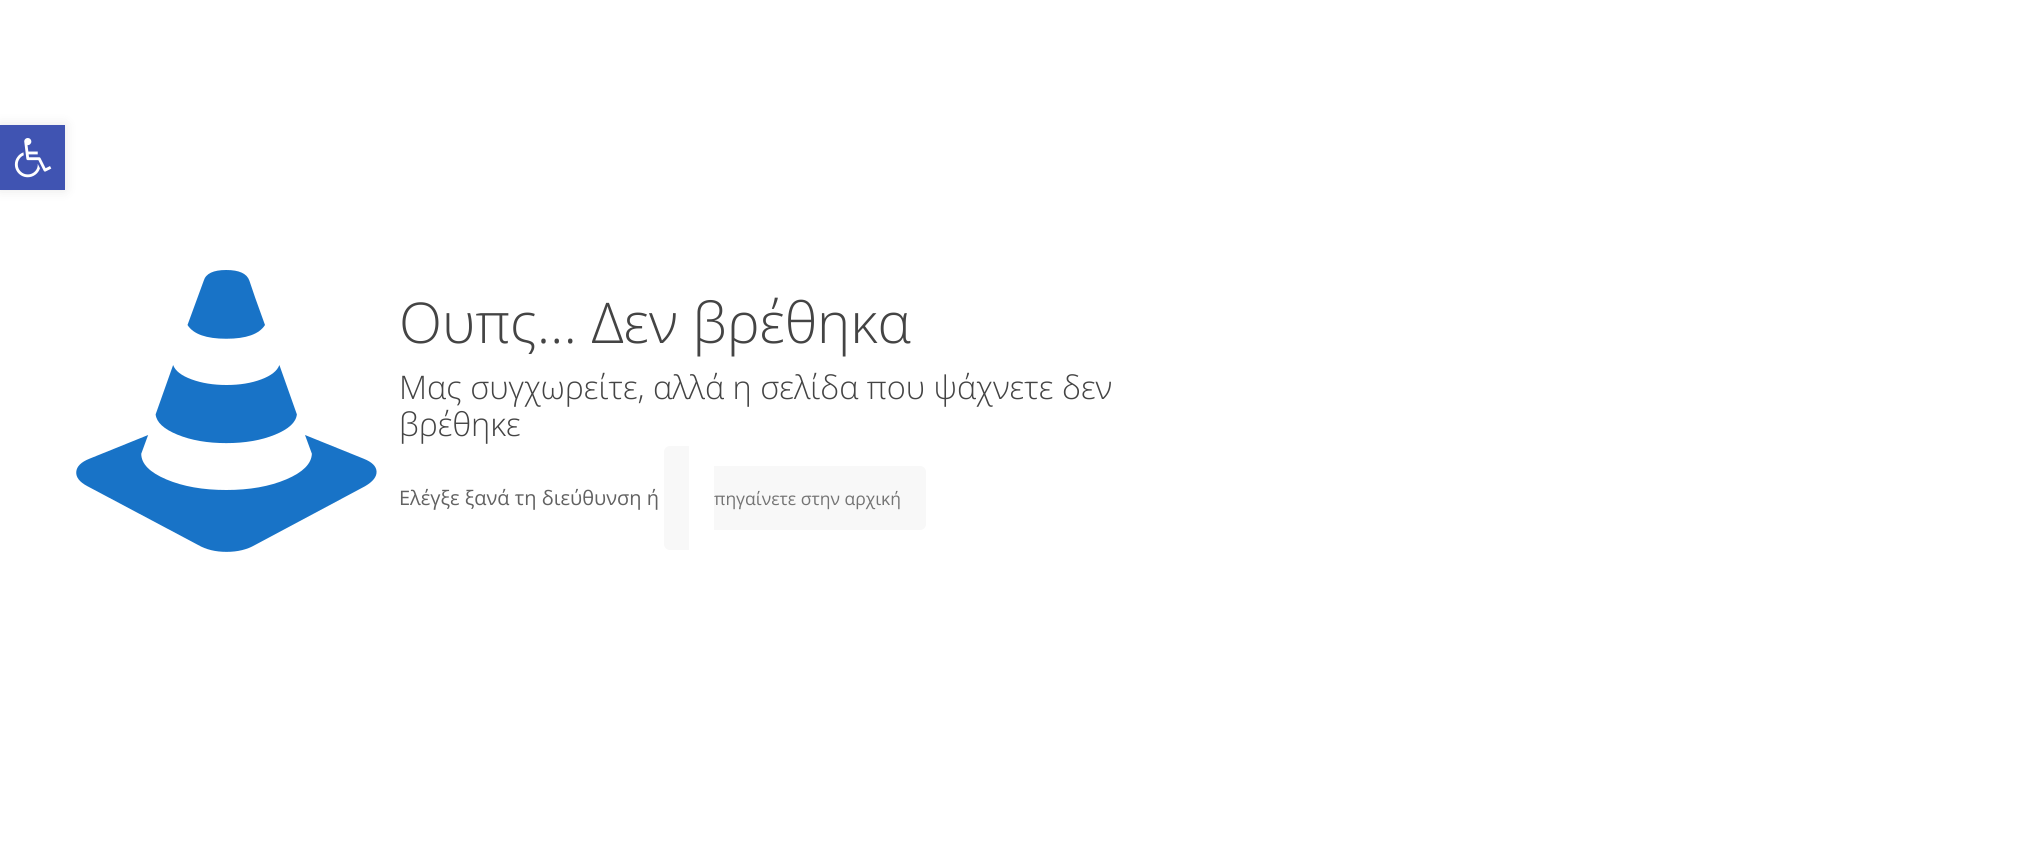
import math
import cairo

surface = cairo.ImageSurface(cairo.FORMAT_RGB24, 2029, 860)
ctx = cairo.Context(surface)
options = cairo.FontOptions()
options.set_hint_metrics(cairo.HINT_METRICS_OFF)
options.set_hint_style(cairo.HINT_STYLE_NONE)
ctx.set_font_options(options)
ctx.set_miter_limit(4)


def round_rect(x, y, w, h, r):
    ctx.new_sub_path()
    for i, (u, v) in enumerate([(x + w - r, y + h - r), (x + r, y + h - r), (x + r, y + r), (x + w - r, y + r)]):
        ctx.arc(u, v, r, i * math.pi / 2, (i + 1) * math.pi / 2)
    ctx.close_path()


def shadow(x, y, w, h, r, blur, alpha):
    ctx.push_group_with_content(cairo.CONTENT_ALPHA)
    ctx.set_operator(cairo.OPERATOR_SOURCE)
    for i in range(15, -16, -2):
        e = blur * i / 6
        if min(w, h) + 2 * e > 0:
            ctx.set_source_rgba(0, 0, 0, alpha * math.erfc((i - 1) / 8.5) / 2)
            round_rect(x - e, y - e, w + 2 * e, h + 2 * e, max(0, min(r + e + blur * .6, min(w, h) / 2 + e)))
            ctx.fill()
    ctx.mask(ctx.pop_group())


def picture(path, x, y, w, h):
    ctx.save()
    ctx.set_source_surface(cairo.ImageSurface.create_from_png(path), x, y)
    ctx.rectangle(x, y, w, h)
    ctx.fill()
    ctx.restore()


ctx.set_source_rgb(1, 1, 1)
ctx.paint()
ctx.set_source_rgb(0, 0, 0)
shadow(0, 125, 65, 65, 0, 6, 0.1)
ctx.set_source_rgb(0.251, 0.329, 0.698)
ctx.rectangle(0, 125, 65, 65)
ctx.fill()
picture("img1.png", 14, 138, 38, 40)
picture("img2.png", 76, 270, 301, 282)
ctx.select_font_face("Open Sans Light")
ctx.set_font_size(56.25)
ctx.set_source_rgb(0.267, 0.267, 0.267)
ctx.move_to(399, 343)
ctx.show_text("Ουπς... Δεν βρέθηκα")
ctx.set_font_size(32.5)
ctx.move_to(399, 399)
ctx.show_text("Μας συγχωρείτε, αλλά η σελίδα που ψάχνετε δεν")
ctx.move_to(399, 436)
ctx.show_text("βρέθηκε")
ctx.select_font_face("Open Sans")
ctx.set_font_size(20)
ctx.set_source_rgb(0.384, 0.384, 0.384)
ctx.move_to(399, 505)
ctx.show_text("Ελέγξε ξανά τη διεύθυνση ή")
ctx.set_source_rgb(0.969, 0.969, 0.969)
ctx.new_path()
ctx.move_to(714, 466)
ctx.line_to(920, 466)
ctx.curve_to(923.5, 466, 926, 468.5, 926, 472)
ctx.line_to(926, 524)
ctx.curve_to(926, 527.5, 923.5, 530, 920, 530)
ctx.line_to(714, 530)
ctx.close_path()
ctx.fill()
ctx.set_font_size(17.5)
ctx.set_source_rgb(0.455, 0.455, 0.455)
ctx.move_to(714, 505)
ctx.show_text("πηγαίνετε στην αρχική")
ctx.set_source_rgb(0.969, 0.969, 0.969)
ctx.new_path()
ctx.move_to(670, 446)
ctx.line_to(689, 446)
ctx.line_to(689, 550)
ctx.line_to(670, 550)
ctx.curve_to(666.5, 550, 664, 547.5, 664, 544)
ctx.line_to(664, 452)
ctx.curve_to(664, 448.5, 666.5, 446, 670, 446)
ctx.close_path()
ctx.fill()
surface.write_to_png("page.png")
